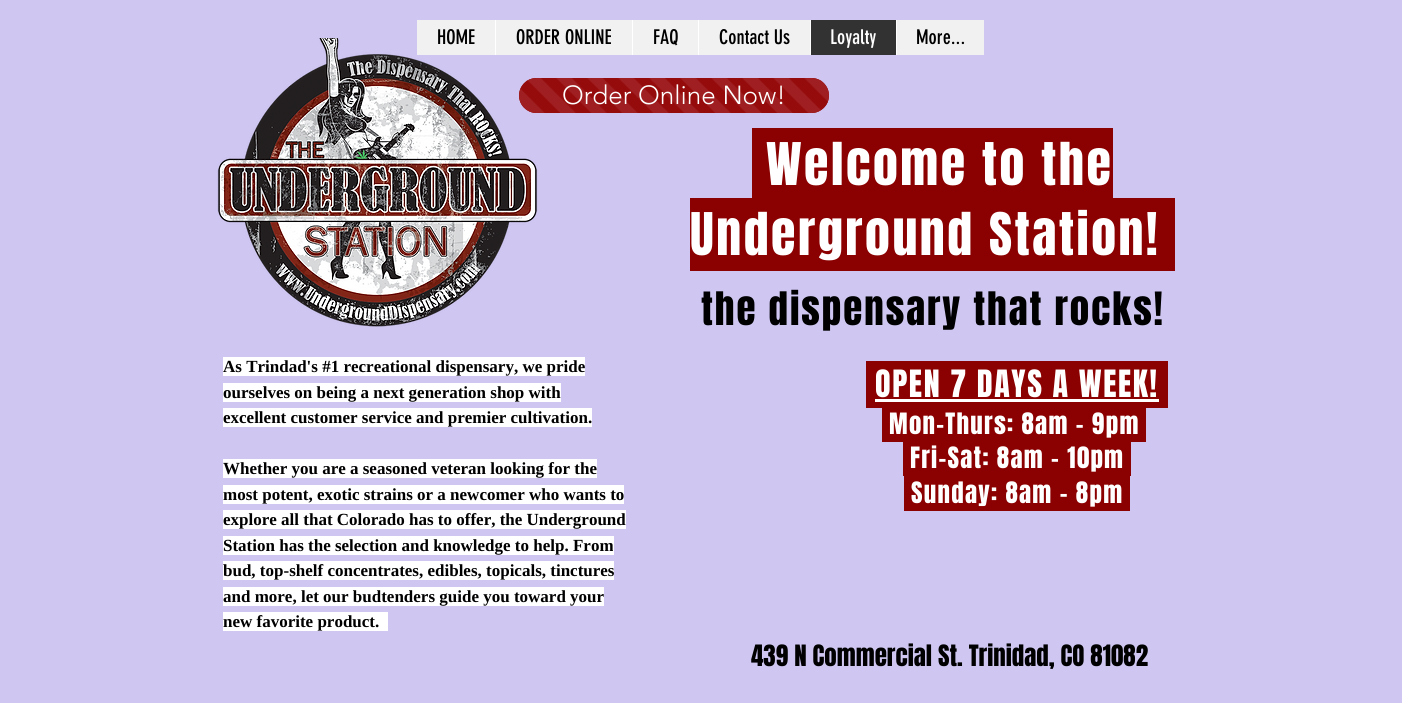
import math
import cairo

surface = cairo.ImageSurface(cairo.FORMAT_RGB24, 1402, 703)
ctx = cairo.Context(surface)
options = cairo.FontOptions()
options.set_hint_metrics(cairo.HINT_METRICS_OFF)
options.set_hint_style(cairo.HINT_STYLE_NONE)
ctx.set_font_options(options)
ctx.set_miter_limit(4)


def spaced_text(x, y, s, letter, word):
    ctx.move_to(x, y)
    for ch in s:
        ctx.show_text(ch)
        ctx.rel_move_to(letter + word * (ch == ' '), 0)


def round_rect(x, y, w, h, r):
    ctx.new_sub_path()
    for i, (u, v) in enumerate([(x + w - r, y + h - r), (x + r, y + h - r), (x + r, y + r), (x + w - r, y + r)]):
        ctx.arc(u, v, r, i * math.pi / 2, (i + 1) * math.pi / 2)
    ctx.close_path()


def picture(path, x, y, w, h):
    ctx.save()
    ctx.set_source_surface(cairo.ImageSurface.create_from_png(path), x, y)
    ctx.rectangle(x, y, w, h)
    ctx.fill()
    ctx.restore()


ctx.set_source_rgb(0.812, 0.78, 0.949)
ctx.paint()
picture("img1.png", 217, 38, 321, 289)
ctx.set_source_rgb(0.945, 0.945, 0.945)
ctx.rectangle(417, 20, 567, 35)
ctx.fill()
ctx.select_font_face("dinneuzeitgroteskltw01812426")
ctx.set_font_size(20)
ctx.set_source_rgb(0, 0, 0)
ctx.move_to(437, 44)
ctx.show_text("HOME")
ctx.set_source_rgb(1, 1, 1)
ctx.rectangle(495, 20, 1, 35)
ctx.fill()
ctx.set_source_rgb(0, 0, 0)
ctx.move_to(516, 44)
ctx.show_text("ORDER ONLINE")
ctx.set_source_rgb(1, 1, 1)
ctx.rectangle(632, 20, 1, 35)
ctx.fill()
ctx.set_source_rgb(0, 0, 0)
ctx.move_to(653, 44)
ctx.show_text("FAQ")
ctx.set_source_rgb(1, 1, 1)
ctx.rectangle(698, 20, 1, 35)
ctx.fill()
ctx.set_source_rgb(0, 0, 0)
ctx.move_to(719, 44)
ctx.show_text("Contact Us")
ctx.set_source_rgb(0.196, 0.196, 0.196)
ctx.rectangle(811, 20, 85, 35)
ctx.fill()
ctx.set_source_rgb(1, 1, 1)
ctx.rectangle(810, 20, 1, 35)
ctx.fill()
ctx.move_to(830, 44)
ctx.show_text("Loyalty")
ctx.rectangle(896, 20, 1, 35)
ctx.fill()
ctx.set_source_rgb(0, 0, 0)
ctx.move_to(916, 44)
ctx.show_text("More...")
ctx.set_source_rgb(0.584, 0.043, 0.043)
round_rect(519, 78, 310, 35, 17.5)
ctx.fill()
picture("img2.png", 519, 78, 310, 35)
ctx.select_font_face("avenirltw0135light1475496 Light")
ctx.set_font_size(26)
ctx.set_source_rgb(1, 1, 1)
ctx.move_to(562, 104)
ctx.show_text("Order Online Now!")
ctx.set_source_rgb(0.545, 0, 0)
ctx.rectangle(752, 128, 361, 70)
ctx.fill()
ctx.select_font_face("Anton")
ctx.set_font_size(50)
ctx.set_source_rgb(1, 1, 1)
spaced_text(766, 185, "Welcome to the", 2.5, 0)
ctx.set_source_rgb(0.545, 0, 0)
ctx.rectangle(690, 198, 485, 73)
ctx.fill()
ctx.set_source_rgb(1, 1, 1)
spaced_text(690, 255, "Underground Station!", 2.5, 0)
ctx.set_font_size(39)
ctx.set_source_rgb(0, 0, 0)
spaced_text(701, 325, "the dispensary that rocks!", 1.95, 0)
ctx.set_source_rgb(1, 1, 1)
ctx.rectangle(223, 357, 362, 19)
ctx.fill()
ctx.select_font_face("Liberation Serif", cairo.FONT_SLANT_NORMAL, cairo.FONT_WEIGHT_BOLD)
ctx.set_font_size(17)
ctx.set_source_rgb(0, 0, 0)
ctx.move_to(223, 372)
ctx.show_text("As Trindad's #1 recreational dispensary, we pride")
ctx.set_source_rgb(1, 1, 1)
ctx.rectangle(223, 383, 338, 19)
ctx.fill()
ctx.set_source_rgb(0, 0, 0)
ctx.move_to(223, 398)
ctx.show_text("ourselves on being a next generation shop with")
ctx.set_source_rgb(1, 1, 1)
ctx.rectangle(223, 408, 369, 19)
ctx.fill()
ctx.set_source_rgb(0, 0, 0)
ctx.move_to(223, 423)
ctx.show_text("excellent customer service and premier cultivation.")
ctx.set_source_rgb(1, 1, 1)
ctx.rectangle(223, 459, 374, 19)
ctx.fill()
ctx.set_source_rgb(0, 0, 0)
ctx.move_to(223, 474)
ctx.show_text("Whether you are a seasoned veteran looking for the")
ctx.set_source_rgb(1, 1, 1)
ctx.rectangle(223, 485, 401, 19)
ctx.fill()
ctx.set_source_rgb(0, 0, 0)
ctx.move_to(223, 500)
ctx.show_text("most potent, exotic strains or a newcomer who wants to")
ctx.set_source_rgb(1, 1, 1)
ctx.rectangle(223, 510, 403, 19)
ctx.fill()
ctx.set_source_rgb(0, 0, 0)
ctx.move_to(223, 525)
ctx.show_text("explore all that Colorado has to offer, the Underground")
ctx.set_source_rgb(1, 1, 1)
ctx.rectangle(223, 536, 391, 19)
ctx.fill()
ctx.set_source_rgb(0, 0, 0)
ctx.move_to(223, 551)
ctx.show_text("Station has the selection and knowledge to help. From")
ctx.set_source_rgb(1, 1, 1)
ctx.rectangle(223, 561, 391, 19)
ctx.fill()
ctx.set_source_rgb(0, 0, 0)
ctx.move_to(223, 576)
ctx.show_text("bud, top-shelf concentrates, edibles, topicals, tinctures")
ctx.set_source_rgb(1, 1, 1)
ctx.rectangle(223, 587, 381, 19)
ctx.fill()
ctx.set_source_rgb(0, 0, 0)
ctx.move_to(223, 602)
ctx.show_text("and more, let our budtenders guide you toward your")
ctx.set_source_rgb(1, 1, 1)
ctx.rectangle(223, 612, 165, 19)
ctx.fill()
ctx.set_source_rgb(0, 0, 0)
ctx.move_to(223, 627)
ctx.show_text("new favorite product.")
ctx.set_source_rgb(0.545, 0, 0)
ctx.rectangle(866, 361, 302, 47)
ctx.fill()
ctx.select_font_face("Anton")
ctx.set_font_size(32)
ctx.set_source_rgb(1, 1, 1)
spaced_text(875, 397, "OPEN 7 DAYS A WEEK!", 1.6, 0)
ctx.rectangle(875, 399, 284, 3)
ctx.fill()
ctx.set_source_rgb(0.545, 0, 0)
ctx.rectangle(882, 408, 264, 34)
ctx.fill()
ctx.set_font_size(25)
ctx.set_source_rgb(1, 1, 1)
spaced_text(889, 434, "Mon-Thurs: 8am - 9pm", 1.25, 0)
ctx.set_source_rgb(0.545, 0, 0)
ctx.rectangle(903, 442, 174, 34)
ctx.fill()
ctx.set_source_rgb(1, 1, 1)
spaced_text(910, 468, "Fri-Sat: 8am - 1", 1.25, 0)
ctx.set_source_rgb(0.545, 0, 0)
ctx.rectangle(1077, 442, 27, 33)
ctx.fill()
ctx.set_source_rgb(1, 1, 1)
spaced_text(1077, 468, "0p", 1.25, 0)
ctx.set_source_rgb(0.545, 0, 0)
ctx.rectangle(1104, 442, 27, 34)
ctx.fill()
ctx.set_source_rgb(1, 1, 1)
spaced_text(1104, 468, "m", 1.25, 0)
ctx.set_source_rgb(0.545, 0, 0)
ctx.rectangle(904, 475, 226, 36)
ctx.fill()
ctx.set_source_rgb(1, 1, 1)
spaced_text(911, 503, "Sunday: 8am - 8pm", 1.25, 0)
ctx.set_source_rgb(0, 0, 0)
ctx.move_to(751, 666)
ctx.show_text("439 N Commercial St. Trinidad, CO 81082")
surface.write_to_png("page.png")
